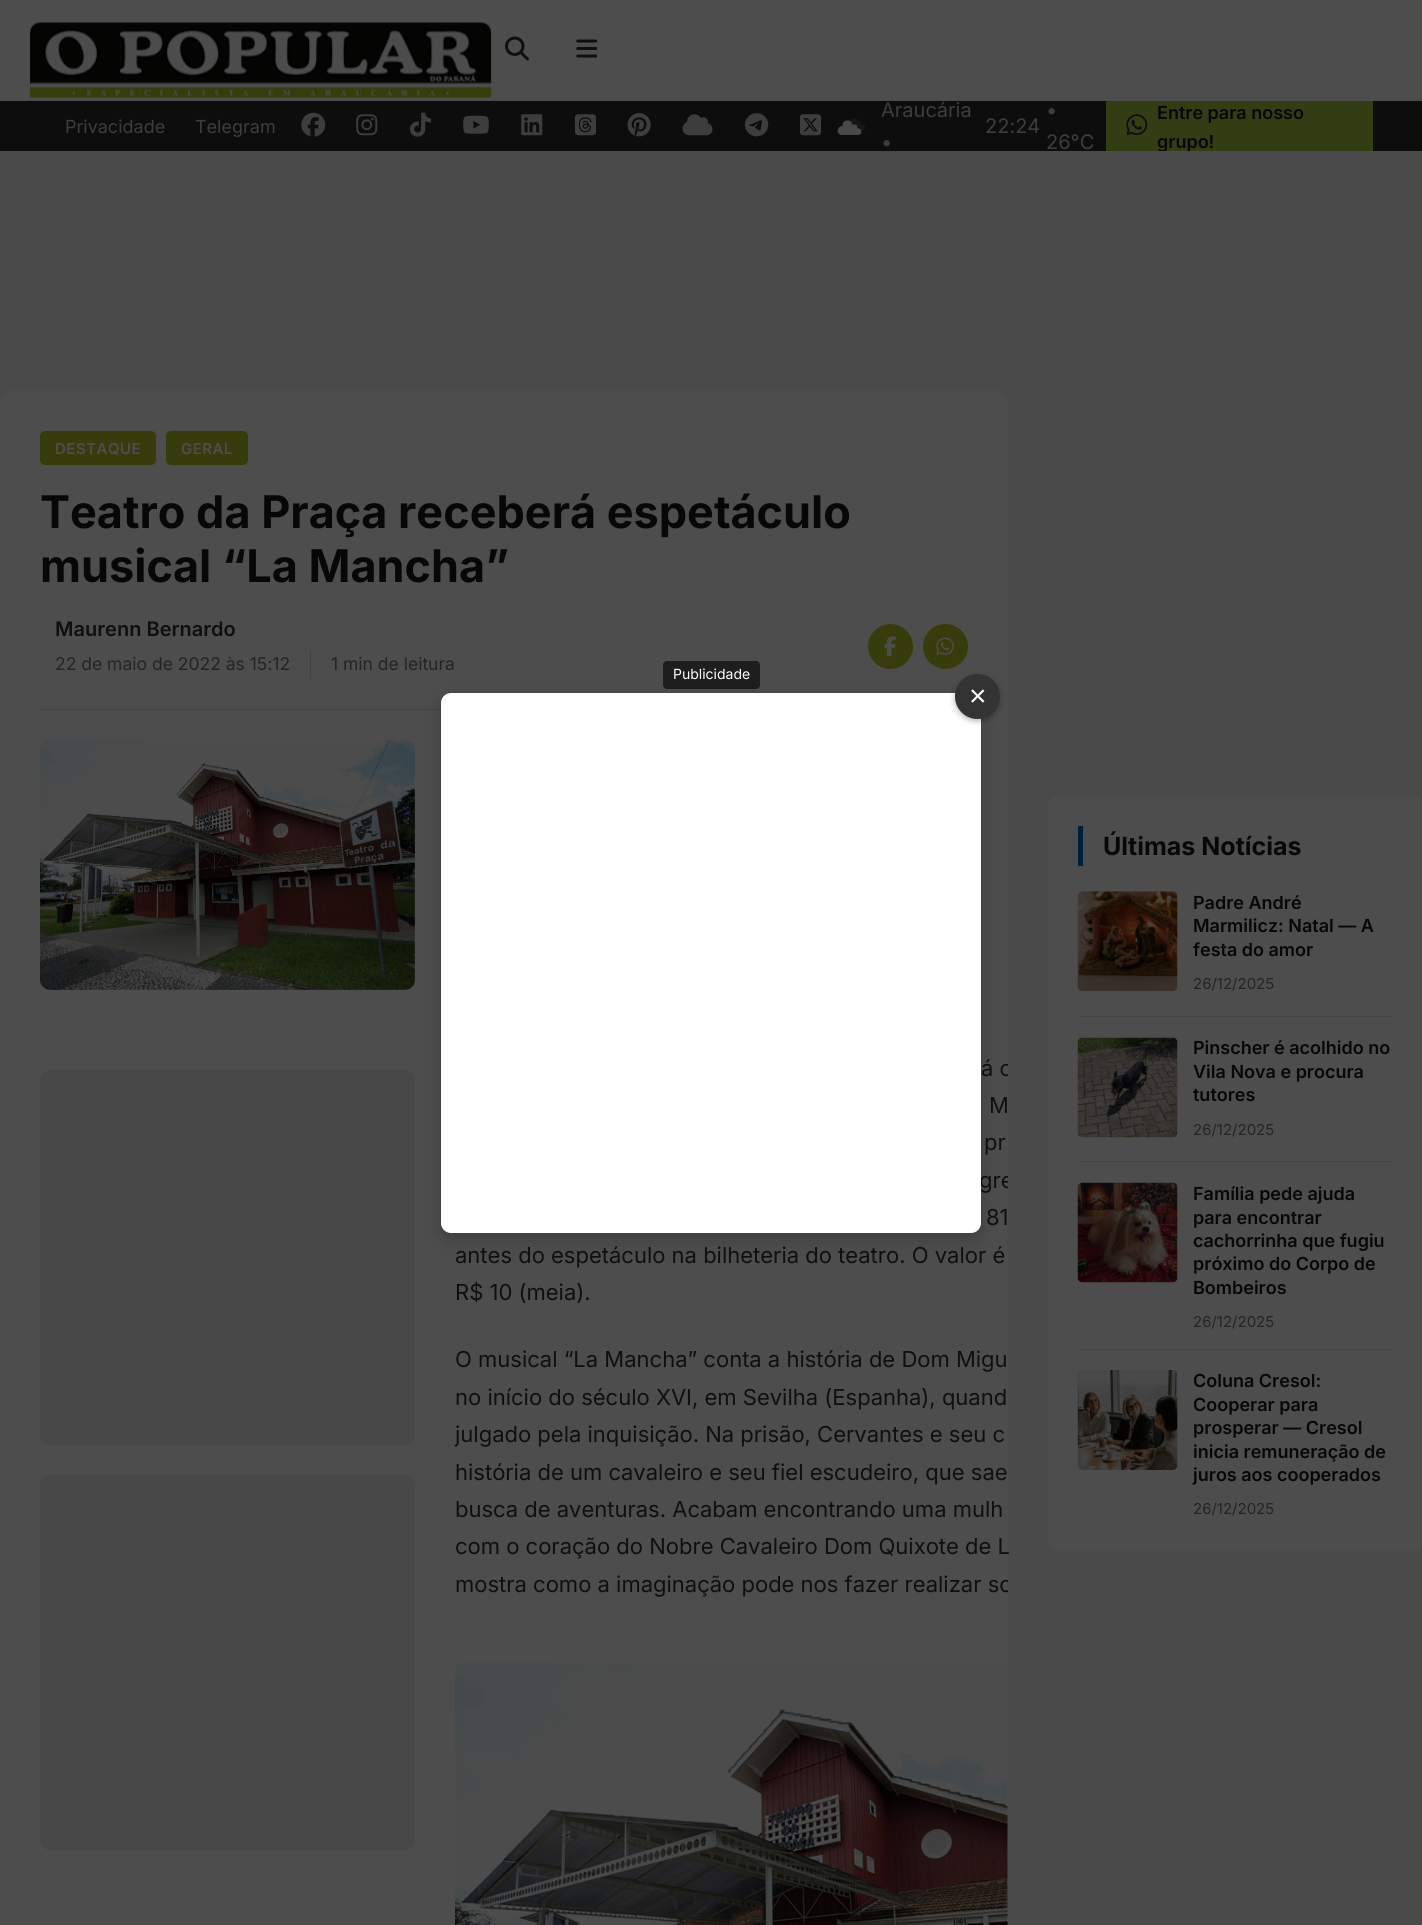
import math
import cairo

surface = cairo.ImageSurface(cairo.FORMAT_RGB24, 1422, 1925)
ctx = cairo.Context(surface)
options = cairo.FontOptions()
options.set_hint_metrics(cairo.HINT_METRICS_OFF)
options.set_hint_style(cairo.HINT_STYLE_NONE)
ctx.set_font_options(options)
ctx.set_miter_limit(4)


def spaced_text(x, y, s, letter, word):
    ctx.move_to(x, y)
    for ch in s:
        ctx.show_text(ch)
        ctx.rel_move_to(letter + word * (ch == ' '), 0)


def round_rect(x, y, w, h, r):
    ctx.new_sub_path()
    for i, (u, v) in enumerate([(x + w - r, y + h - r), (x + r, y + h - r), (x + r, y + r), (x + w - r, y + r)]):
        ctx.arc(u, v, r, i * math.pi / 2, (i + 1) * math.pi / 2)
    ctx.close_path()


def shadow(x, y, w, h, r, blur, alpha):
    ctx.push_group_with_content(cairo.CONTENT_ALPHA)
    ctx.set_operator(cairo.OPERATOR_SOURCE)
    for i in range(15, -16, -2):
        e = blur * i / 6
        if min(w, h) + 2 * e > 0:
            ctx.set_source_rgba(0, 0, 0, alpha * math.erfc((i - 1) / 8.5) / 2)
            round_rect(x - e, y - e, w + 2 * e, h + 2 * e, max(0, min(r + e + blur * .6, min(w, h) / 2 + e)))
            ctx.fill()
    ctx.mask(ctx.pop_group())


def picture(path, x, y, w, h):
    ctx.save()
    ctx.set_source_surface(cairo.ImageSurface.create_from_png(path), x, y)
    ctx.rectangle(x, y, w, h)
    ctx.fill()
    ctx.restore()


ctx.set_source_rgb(0.29, 0.29, 0.29)
ctx.paint()
ctx.set_source_rgb(0.302, 0.302, 0.302)
ctx.rectangle(0, 0, 1422, 100)
ctx.fill()
picture("img1.png", 30, 22, 462, 76)
picture("img2.png", 505, 36, 24, 25)
picture("img3.png", 576, 39, 22, 19)
ctx.set_source_rgb(0.051, 0.051, 0.051)
ctx.rectangle(0, 101, 1422, 50)
ctx.fill()
ctx.select_font_face("Inter")
ctx.set_font_size(18)
ctx.set_source_rgb(0.239, 0.239, 0.239)
ctx.move_to(65, 133)
ctx.show_text("Privacidade")
ctx.move_to(195, 133)
ctx.show_text("Telegram")
picture("img4.png", 301, 112, 25, 25)
picture("img5.png", 356, 114, 22, 22)
picture("img6.png", 410, 112, 21, 25)
picture("img7.png", 463, 115, 26, 19)
picture("img8.png", 521, 114, 22, 22)
picture("img9.png", 575, 114, 21, 22)
picture("img10.png", 627, 113, 24, 24)
picture("img11.png", 682, 114, 31, 22)
picture("img12.png", 745, 113, 24, 24)
picture("img13.png", 800, 114, 21, 22)
picture("img14.png", 837, 117, 29, 18)
ctx.set_font_size(20)
ctx.move_to(881, 117)
ctx.show_text("Araucária")
ctx.move_to(1046, 117)
ctx.show_text("•")
ctx.move_to(985, 133)
ctx.show_text("22:24")
ctx.move_to(881, 149)
ctx.show_text("•")
ctx.move_to(1046, 149)
ctx.show_text("26°C")
ctx.set_source_rgb(0.196, 0.239, 0.082)
ctx.rectangle(1106, 101, 267, 50)
ctx.fill()
picture("img15.png", 1126, 114, 22, 22)
ctx.select_font_face("Inter SemiBold")
ctx.set_font_size(18)
ctx.set_source_rgb(0.031, 0.031, 0.031)
ctx.move_to(1157, 119)
ctx.show_text("Entre para nosso")
ctx.save()
ctx.rectangle(0, 101, 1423, 50)
ctx.clip()
ctx.move_to(1157, 148)
ctx.show_text("grupo!")
ctx.restore()
ctx.set_source_rgb(0.302, 0.302, 0.302)
round_rect(0, 391, 1008, 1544, 10)
ctx.fill()
ctx.set_source_rgb(0.216, 0.235, 0.051)
round_rect(40, 431, 116, 34, 5)
ctx.fill()
ctx.set_font_size(15)
ctx.set_source_rgb(0.302, 0.302, 0.302)
spaced_text(55, 454, "DESTAQUE", 0.5, 0)
ctx.set_source_rgb(0.216, 0.235, 0.051)
round_rect(166, 431, 82, 34, 5)
ctx.fill()
ctx.set_source_rgb(0.302, 0.302, 0.302)
spaced_text(181, 454, "GERAL", 0.5, 0)
ctx.select_font_face("Inter", cairo.FONT_SLANT_NORMAL, cairo.FONT_WEIGHT_BOLD)
ctx.set_font_size(45)
ctx.set_source_rgb(0.031, 0.031, 0.031)
ctx.move_to(40, 528)
ctx.show_text("Teatro da Praça receberá espetáculo")
ctx.move_to(40, 582)
ctx.show_text("musical “La Mancha”")
ctx.set_source_rgb(0.263, 0.263, 0.263)
ctx.rectangle(40, 709, 401, 1)
ctx.fill()
ctx.select_font_face("Inter SemiBold")
ctx.set_font_size(20)
ctx.set_source_rgb(0.059, 0.059, 0.059)
ctx.move_to(55, 636)
ctx.show_text("Maurenn Bernardo")
ctx.select_font_face("Inter")
ctx.set_font_size(17.5)
ctx.set_source_rgb(0.141, 0.141, 0.141)
ctx.move_to(55, 670)
ctx.show_text("22 de maio de 2022 às 15:12")
ctx.set_source_rgb(0.259, 0.259, 0.259)
ctx.rectangle(310, 650, 1, 29)
ctx.fill()
ctx.set_source_rgb(0.141, 0.141, 0.141)
ctx.move_to(331, 670)
ctx.show_text("1 min de leitura")
ctx.set_source_rgb(0.216, 0.235, 0.051)
ctx.new_path()
ctx.arc(890.5, 646.5, 22.5, 0, 2 * math.pi)
ctx.fill()
picture("img16.png", 884, 636, 12, 21)
ctx.arc(945.5, 646.5, 22.5, 0, 2 * math.pi)
ctx.fill()
picture("img17.png", 936, 637, 18, 18)
picture("img18.png", 40, 740, 375, 250)
ctx.set_source_rgb(0.282, 0.282, 0.282)
round_rect(40, 1070, 375, 375, 10)
ctx.fill()
round_rect(40, 1475, 375, 375, 10)
ctx.fill()
ctx.save()
round_rect(0, 391, 1008, 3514, 10)
ctx.clip()
ctx.set_font_size(22)
ctx.set_source_rgb(0.059, 0.059, 0.059)
ctx.move_to(981, 1076)
ctx.show_text("á o")
ctx.restore()
ctx.set_font_size(22)
ctx.set_source_rgb(0.059, 0.059, 0.059)
ctx.move_to(989, 1113)
ctx.show_text("M")
ctx.move_to(984, 1150)
ctx.show_text("pr")
ctx.save()
round_rect(0, 391, 1008, 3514, 10)
ctx.clip()
ctx.move_to(979, 1188)
ctx.show_text("gre")
ctx.restore()
ctx.move_to(986, 1225)
ctx.show_text("81")
ctx.move_to(455, 1263)
ctx.show_text("antes do espetáculo na bilheteria do teatro. O valor é")
ctx.move_to(455, 1300)
ctx.show_text("R$ 10 (meia).")
ctx.move_to(455, 1367)
ctx.show_text("O musical “La Mancha” conta a história de Dom Migu")
ctx.move_to(455, 1405)
ctx.show_text("no início do século XVI, em Sevilha (Espanha), quand")
ctx.move_to(455, 1442)
ctx.show_text("julgado pela inquisição. Na prisão, Cervantes e seu c")
ctx.move_to(455, 1480)
ctx.show_text("história de um cavaleiro e seu fiel escudeiro, que sae")
ctx.move_to(455, 1517)
ctx.show_text("busca de aventuras. Acabam encontrando uma mulh")
ctx.move_to(455, 1554)
ctx.show_text("com o coração do Nobre Cavaleiro Dom Quixote de L")
ctx.save()
round_rect(0, 391, 1008, 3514, 10)
ctx.clip()
ctx.move_to(455, 1592)
ctx.show_text("mostra como a imaginação pode nos fazer realizar so")
ctx.restore()
picture("img19.png", 455, 1662, 553, 263)
ctx.set_source_rgb(0.302, 0.302, 0.302)
round_rect(1048, 796, 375, 755, 10)
ctx.fill()
ctx.set_source_rgb(0, 0.122, 0.239)
ctx.rectangle(1078, 826, 5, 40)
ctx.fill()
ctx.select_font_face("Inter", cairo.FONT_SLANT_NORMAL, cairo.FONT_WEIGHT_BOLD)
ctx.set_font_size(25)
ctx.set_source_rgb(0.031, 0.031, 0.031)
ctx.move_to(1103, 855)
ctx.show_text("Últimas Notícias")
ctx.set_source_rgb(0.271, 0.271, 0.271)
ctx.rectangle(1078, 1016, 315, 1)
ctx.fill()
picture("img20.png", 1077, 891, 101, 101)
ctx.select_font_face("Inter SemiBold")
ctx.set_font_size(18)
ctx.set_source_rgb(0.031, 0.031, 0.031)
ctx.move_to(1193, 909)
ctx.show_text("Padre André")
ctx.move_to(1193, 932)
ctx.show_text("Marmilicz: Natal — A")
ctx.move_to(1193, 956)
ctx.show_text("festa do amor")
ctx.select_font_face("Inter")
ctx.set_font_size(15)
ctx.set_source_rgb(0.141, 0.141, 0.141)
ctx.move_to(1193, 989)
ctx.show_text("26/12/2025")
ctx.set_source_rgb(0.271, 0.271, 0.271)
ctx.rectangle(1078, 1161, 315, 1)
ctx.fill()
picture("img21.png", 1077, 1037, 101, 101)
ctx.select_font_face("Inter SemiBold")
ctx.set_font_size(18)
ctx.set_source_rgb(0.031, 0.031, 0.031)
ctx.move_to(1193, 1054)
ctx.show_text("Pinscher é acolhido no")
ctx.move_to(1193, 1078)
ctx.show_text("Vila Nova e procura")
ctx.move_to(1193, 1101)
ctx.show_text("tutores")
ctx.select_font_face("Inter")
ctx.set_font_size(15)
ctx.set_source_rgb(0.141, 0.141, 0.141)
ctx.move_to(1193, 1135)
ctx.show_text("26/12/2025")
ctx.set_source_rgb(0.271, 0.271, 0.271)
ctx.rectangle(1078, 1349, 315, 1)
ctx.fill()
picture("img22.png", 1077, 1182, 101, 101)
ctx.select_font_face("Inter SemiBold")
ctx.set_font_size(18)
ctx.set_source_rgb(0.031, 0.031, 0.031)
ctx.move_to(1193, 1200)
ctx.show_text("Família pede ajuda")
ctx.move_to(1193, 1224)
ctx.show_text("para encontrar")
ctx.move_to(1193, 1247)
ctx.show_text("cachorrinha que fugiu")
ctx.move_to(1193, 1270)
ctx.show_text("próximo do Corpo de")
ctx.move_to(1193, 1294)
ctx.show_text("Bombeiros")
ctx.select_font_face("Inter")
ctx.set_font_size(15)
ctx.set_source_rgb(0.141, 0.141, 0.141)
ctx.move_to(1193, 1327)
ctx.show_text("26/12/2025")
picture("img23.png", 1077, 1370, 101, 100)
ctx.select_font_face("Inter SemiBold")
ctx.set_font_size(18)
ctx.set_source_rgb(0.031, 0.031, 0.031)
ctx.move_to(1193, 1387)
ctx.show_text("Coluna Cresol:")
ctx.move_to(1193, 1411)
ctx.show_text("Cooperar para")
ctx.move_to(1193, 1434)
ctx.show_text("prosperar — Cresol")
ctx.move_to(1193, 1458)
ctx.show_text("inicia remuneração de")
ctx.move_to(1193, 1481)
ctx.show_text("juros aos cooperados")
ctx.select_font_face("Inter")
ctx.set_font_size(15)
ctx.set_source_rgb(0.141, 0.141, 0.141)
ctx.move_to(1193, 1514)
ctx.show_text("26/12/2025")
ctx.set_source_rgb(0, 0, 0)
shadow(441, 699, 540, 540, 10, 9.5, 0.2)
ctx.set_source_rgb(1, 1, 1)
round_rect(441, 693, 540, 540, 10)
ctx.fill()
ctx.set_source_rgb(0.118, 0.118, 0.118)
round_rect(663, 661, 97, 28, 4)
ctx.fill()
ctx.set_font_size(14)
ctx.set_source_rgb(1, 1, 1)
ctx.move_to(673, 679)
ctx.show_text("Publicidade")
ctx.set_source_rgb(0, 0, 0)
shadow(955, 676, 45, 45, 22.5, 3, 0.3)
ctx.set_source_rgb(0.2, 0.2, 0.2)
ctx.arc(977.5, 696.5, 22.5, 0, 2 * math.pi)
ctx.fill()
ctx.select_font_face("Liberation Sans")
ctx.set_font_size(30)
ctx.set_source_rgb(1, 1, 1)
ctx.move_to(969, 706)
ctx.show_text("×")
surface.write_to_png("page.png")
